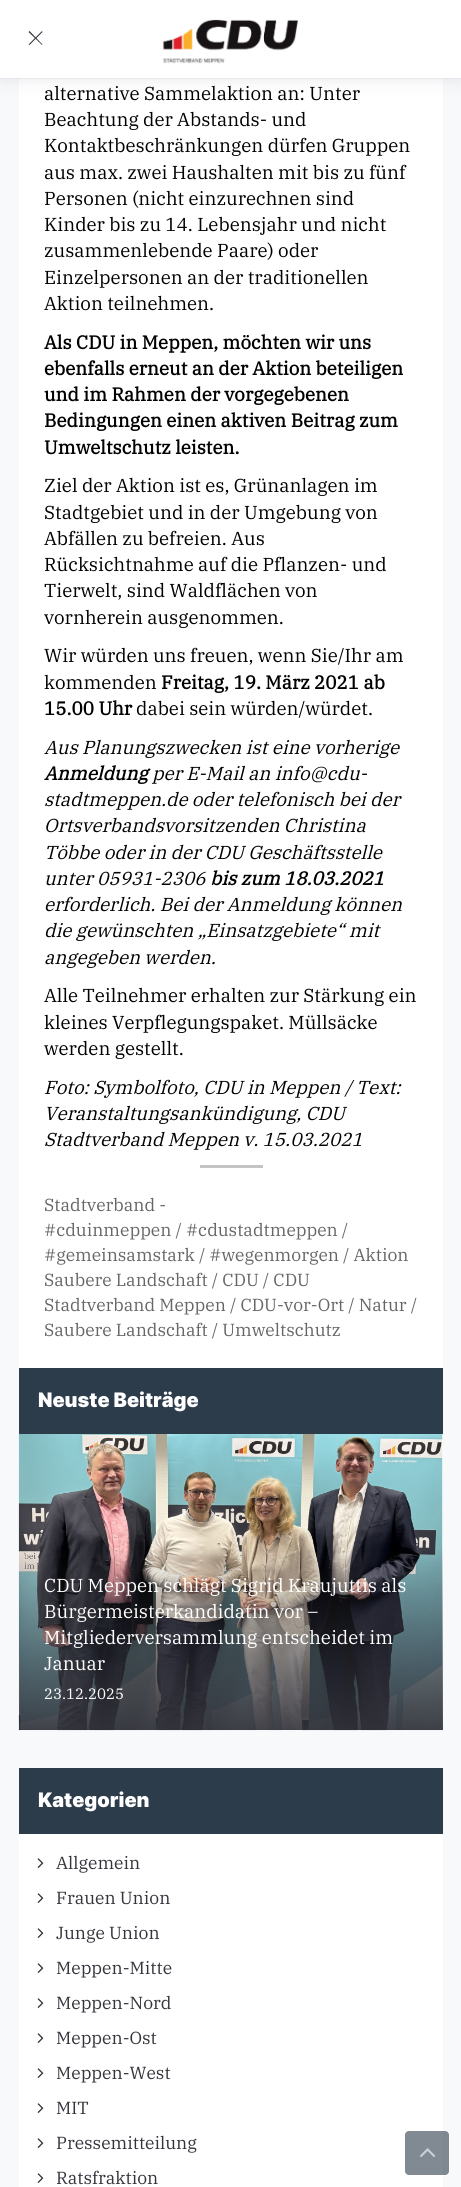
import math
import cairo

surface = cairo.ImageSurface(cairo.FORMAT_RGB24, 461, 2187)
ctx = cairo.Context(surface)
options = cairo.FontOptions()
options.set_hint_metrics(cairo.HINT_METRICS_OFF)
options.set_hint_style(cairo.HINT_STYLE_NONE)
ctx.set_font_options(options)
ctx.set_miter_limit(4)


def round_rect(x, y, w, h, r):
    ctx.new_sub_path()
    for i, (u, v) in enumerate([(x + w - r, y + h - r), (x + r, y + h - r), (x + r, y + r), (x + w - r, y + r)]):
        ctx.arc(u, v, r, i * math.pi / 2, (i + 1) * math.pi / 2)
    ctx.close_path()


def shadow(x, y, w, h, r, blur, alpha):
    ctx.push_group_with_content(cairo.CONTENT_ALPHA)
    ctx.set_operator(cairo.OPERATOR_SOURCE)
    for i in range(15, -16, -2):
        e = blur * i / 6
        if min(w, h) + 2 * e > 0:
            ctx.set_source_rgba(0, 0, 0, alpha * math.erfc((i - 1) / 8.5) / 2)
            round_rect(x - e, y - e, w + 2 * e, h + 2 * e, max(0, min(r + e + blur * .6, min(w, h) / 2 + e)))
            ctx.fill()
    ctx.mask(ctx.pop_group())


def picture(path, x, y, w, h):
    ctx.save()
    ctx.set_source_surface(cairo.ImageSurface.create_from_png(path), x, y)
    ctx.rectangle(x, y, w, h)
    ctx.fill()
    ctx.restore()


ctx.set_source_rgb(0.969, 0.973, 0.98)
ctx.paint()
ctx.set_source_rgb(1, 1, 1)
ctx.rectangle(19, 79, 424, 1289)
ctx.fill()
ctx.set_source_rgb(0, 0, 0.196)
shadow(0, 0, 461, 79, 0, 9.5, 0.09)
ctx.set_source_rgb(1, 1, 1)
ctx.rectangle(0, 0, 461, 78)
ctx.fill()
ctx.set_source_rgb(0.91, 0.91, 0.925)
ctx.rectangle(0, 78, 461, 1)
ctx.fill()
ctx.set_source_rgb(0.204, 0.204, 0.235)
ctx.new_path()
ctx.move_to(29.5, 31)
ctx.line_to(42.5, 44.5)
ctx.line_to(42, 45)
ctx.line_to(28.5, 32)
ctx.close_path()
ctx.fill()
ctx.new_path()
ctx.move_to(28.5, 44.5)
ctx.line_to(42, 31)
ctx.line_to(42.5, 32)
ctx.line_to(29.5, 45)
ctx.close_path()
ctx.fill()
picture("img1.png", 162, 19, 136, 45)
ctx.select_font_face("IBM Plex Serif")
ctx.set_font_size(18.75)
ctx.set_source_rgb(0, 0, 0)
ctx.move_to(44, 100)
ctx.show_text("alternative Sammelaktion an: Unter")
ctx.move_to(44, 126)
ctx.show_text("Beachtung der Abstands- und")
ctx.move_to(44, 152)
ctx.show_text("Kontaktbeschränkungen dürfen Gruppen")
ctx.move_to(44, 179)
ctx.show_text("aus max. zwei Haushalten mit bis zu fünf")
ctx.move_to(44, 205)
ctx.show_text("Personen (nicht einzurechnen sind")
ctx.move_to(44, 231)
ctx.show_text("Kinder bis zu 14. Lebensjahr und nicht")
ctx.move_to(44, 257)
ctx.show_text("zusammenlebende Paare) oder")
ctx.move_to(44, 284)
ctx.show_text("Einzelpersonen an der traditionellen")
ctx.move_to(44, 310)
ctx.show_text("Aktion teilnehmen.")
ctx.select_font_face("IBM Plex Serif", cairo.FONT_SLANT_NORMAL, cairo.FONT_WEIGHT_BOLD)
ctx.move_to(44, 349)
ctx.show_text("Als CDU in Meppen, möchten wir uns")
ctx.move_to(44, 375)
ctx.show_text("ebenfalls erneut an der Aktion beteiligen")
ctx.move_to(44, 401)
ctx.show_text("und im Rahmen der vorgegebenen")
ctx.move_to(44, 427)
ctx.show_text("Bedingungen einen aktiven Beitrag zum")
ctx.move_to(44, 454)
ctx.show_text("Umweltschutz leisten.")
ctx.select_font_face("IBM Plex Serif")
ctx.move_to(44, 492)
ctx.show_text("Ziel der Aktion ist es, Grünanlagen im")
ctx.move_to(44, 519)
ctx.show_text("Stadtgebiet und in der Umgebung von")
ctx.move_to(44, 545)
ctx.show_text("Abfällen zu befreien. Aus")
ctx.move_to(44, 571)
ctx.show_text("Rücksichtnahme auf die Pflanzen- und")
ctx.move_to(44, 597)
ctx.show_text("Tierwelt, sind Waldflächen von")
ctx.move_to(44, 624)
ctx.show_text("vornherein ausgenommen.")
ctx.move_to(44, 662)
ctx.show_text("Wir würden uns freuen, wenn Sie/Ihr am")
ctx.move_to(44, 689)
ctx.show_text("kommenden")
ctx.select_font_face("IBM Plex Serif", cairo.FONT_SLANT_NORMAL, cairo.FONT_WEIGHT_BOLD)
ctx.move_to(161, 689)
ctx.show_text("Freitag, 19. März 2021 ab")
ctx.move_to(44, 715)
ctx.show_text("15.00 Uhr")
ctx.select_font_face("IBM Plex Serif")
ctx.move_to(136, 715)
ctx.show_text("dabei sein würden/würdet.")
ctx.select_font_face("IBM Plex Serif", cairo.FONT_SLANT_ITALIC)
ctx.move_to(44, 754)
ctx.show_text("Aus Planungszwecken ist eine vorherige")
ctx.select_font_face("IBM Plex Serif", cairo.FONT_SLANT_ITALIC, cairo.FONT_WEIGHT_BOLD)
ctx.move_to(44, 780)
ctx.show_text("Anmeldung")
ctx.select_font_face("IBM Plex Serif", cairo.FONT_SLANT_ITALIC)
ctx.move_to(152, 780)
ctx.show_text("per E-Mail an info@cdu-")
ctx.move_to(44, 806)
ctx.show_text("stadtmeppen.de oder telefonisch bei der")
ctx.move_to(44, 832)
ctx.show_text("Ortsverbandsvorsitzenden Christina")
ctx.move_to(44, 859)
ctx.show_text("Többe oder in der CDU Geschäftsstelle")
ctx.move_to(44, 885)
ctx.show_text("unter 05931-2306")
ctx.select_font_face("IBM Plex Serif", cairo.FONT_SLANT_ITALIC, cairo.FONT_WEIGHT_BOLD)
ctx.move_to(210, 885)
ctx.show_text("bis zum 18.03.2021")
ctx.select_font_face("IBM Plex Serif", cairo.FONT_SLANT_ITALIC)
ctx.move_to(44, 911)
ctx.show_text("erforderlich. Bei der Anmeldung können")
ctx.move_to(44, 937)
ctx.show_text("die gewünschten „Einsatzgebiete“ mit")
ctx.move_to(44, 964)
ctx.show_text("angegeben werden.")
ctx.select_font_face("IBM Plex Serif")
ctx.move_to(44, 1002)
ctx.show_text("Alle Teilnehmer erhalten zur Stärkung ein")
ctx.move_to(44, 1029)
ctx.show_text("kleines Verpflegungspaket. Müllsäcke")
ctx.move_to(44, 1055)
ctx.show_text("werden gestellt.")
ctx.select_font_face("IBM Plex Serif", cairo.FONT_SLANT_ITALIC)
ctx.move_to(44, 1094)
ctx.show_text("Foto: Symbolfoto, CDU in Meppen / Text:")
ctx.move_to(44, 1120)
ctx.show_text("Veranstaltungsankündigung, CDU")
ctx.move_to(44, 1146)
ctx.show_text("Stadtverband Meppen v. 15.03.2021")
ctx.set_source_rgb(0.769, 0.769, 0.769)
ctx.rectangle(200, 1165, 63, 3)
ctx.fill()
ctx.select_font_face("IBM Plex Serif")
ctx.set_font_size(17.5)
ctx.set_source_rgb(0.4, 0.4, 0.4)
ctx.move_to(44, 1211)
ctx.show_text("Stadtverband -")
ctx.move_to(44, 1236)
ctx.show_text("#cduinmeppen / #cdustadtmeppen /")
ctx.move_to(44, 1261)
ctx.show_text("#gemeinsamstark / #wegenmorgen / Aktion")
ctx.move_to(44, 1286)
ctx.show_text("Saubere Landschaft / CDU / CDU")
ctx.move_to(44, 1311)
ctx.show_text("Stadtverband Meppen / CDU-vor-Ort / Natur /")
ctx.move_to(44, 1336)
ctx.show_text("Saubere Landschaft / Umweltschutz")
ctx.set_source_rgb(1, 1, 1)
ctx.rectangle(442, 1434, 1, 296)
ctx.fill()
ctx.set_source_rgb(0.176, 0.235, 0.294)
ctx.rectangle(19, 1368, 424, 66)
ctx.fill()
ctx.select_font_face("Inter Black")
ctx.set_font_size(20)
ctx.set_source_rgb(1, 1, 1)
ctx.move_to(38, 1407)
ctx.show_text("Neuste Beiträge")
picture("img2.png", 18, 1434, 425, 297)
gradient = cairo.LinearGradient(231, 1546, 231, 1730)
gradient.add_color_stop_rgba(0, 0.204, 0.204, 0.235, 0)
gradient.add_color_stop_rgba(1, 0.204, 0.204, 0.235, 0.9)
ctx.set_source(gradient)
ctx.rectangle(19, 1550, 424, 180)
ctx.fill()
ctx.select_font_face("IBM Plex Serif")
ctx.set_font_size(18.75)
ctx.set_source_rgb(1, 1, 1)
ctx.move_to(44, 1592)
ctx.show_text("CDU Meppen schlägt Sigrid Kraujuttis als")
ctx.move_to(44, 1618)
ctx.show_text("Bürgermeisterkandidatin vor –")
ctx.move_to(44, 1644)
ctx.show_text("Mitgliederversammlung entscheidet im")
ctx.move_to(44, 1670)
ctx.show_text("Januar")
ctx.set_font_size(15)
ctx.move_to(44, 1699)
ctx.show_text("23.12.2025")
ctx.rectangle(19, 1834, 424, 353)
ctx.fill()
ctx.set_source_rgb(0.176, 0.235, 0.294)
ctx.rectangle(19, 1768, 424, 66)
ctx.fill()
ctx.select_font_face("Inter Black")
ctx.set_font_size(20)
ctx.set_source_rgb(1, 1, 1)
ctx.move_to(38, 1807)
ctx.show_text("Kategorien")
picture("img3.png", 37, 1858, 7, 10)
ctx.select_font_face("IBM Plex Serif")
ctx.set_font_size(17.5)
ctx.set_source_rgb(0.204, 0.204, 0.235)
ctx.move_to(56, 1869)
ctx.show_text("Allgemein")
picture("img3.png", 37, 1893, 7, 10)
ctx.move_to(56, 1904)
ctx.show_text("Frauen Union")
picture("img3.png", 37, 1928, 7, 10)
ctx.move_to(56, 1939)
ctx.show_text("Junge Union")
picture("img3.png", 37, 1963, 7, 10)
ctx.move_to(56, 1974)
ctx.show_text("Meppen-Mitte")
picture("img3.png", 37, 1998, 7, 10)
ctx.move_to(56, 2009)
ctx.show_text("Meppen-Nord")
picture("img3.png", 37, 2033, 7, 10)
ctx.move_to(56, 2044)
ctx.show_text("Meppen-Ost")
picture("img3.png", 37, 2068, 7, 10)
ctx.move_to(56, 2079)
ctx.show_text("Meppen-West")
picture("img3.png", 37, 2103, 7, 10)
ctx.move_to(56, 2114)
ctx.show_text("MIT")
picture("img3.png", 37, 2138, 7, 10)
ctx.move_to(56, 2149)
ctx.show_text("Pressemitteilung")
picture("img3.png", 37, 2173, 7, 10)
ctx.move_to(56, 2184)
ctx.show_text("Ratsfraktion")
ctx.set_source_rgba(0.176, 0.235, 0.294, 0.6)
round_rect(405, 2131, 44, 44, 4)
ctx.fill()
picture("img4.png", 420, 2148, 16, 9)
surface.write_to_png("page.png")
